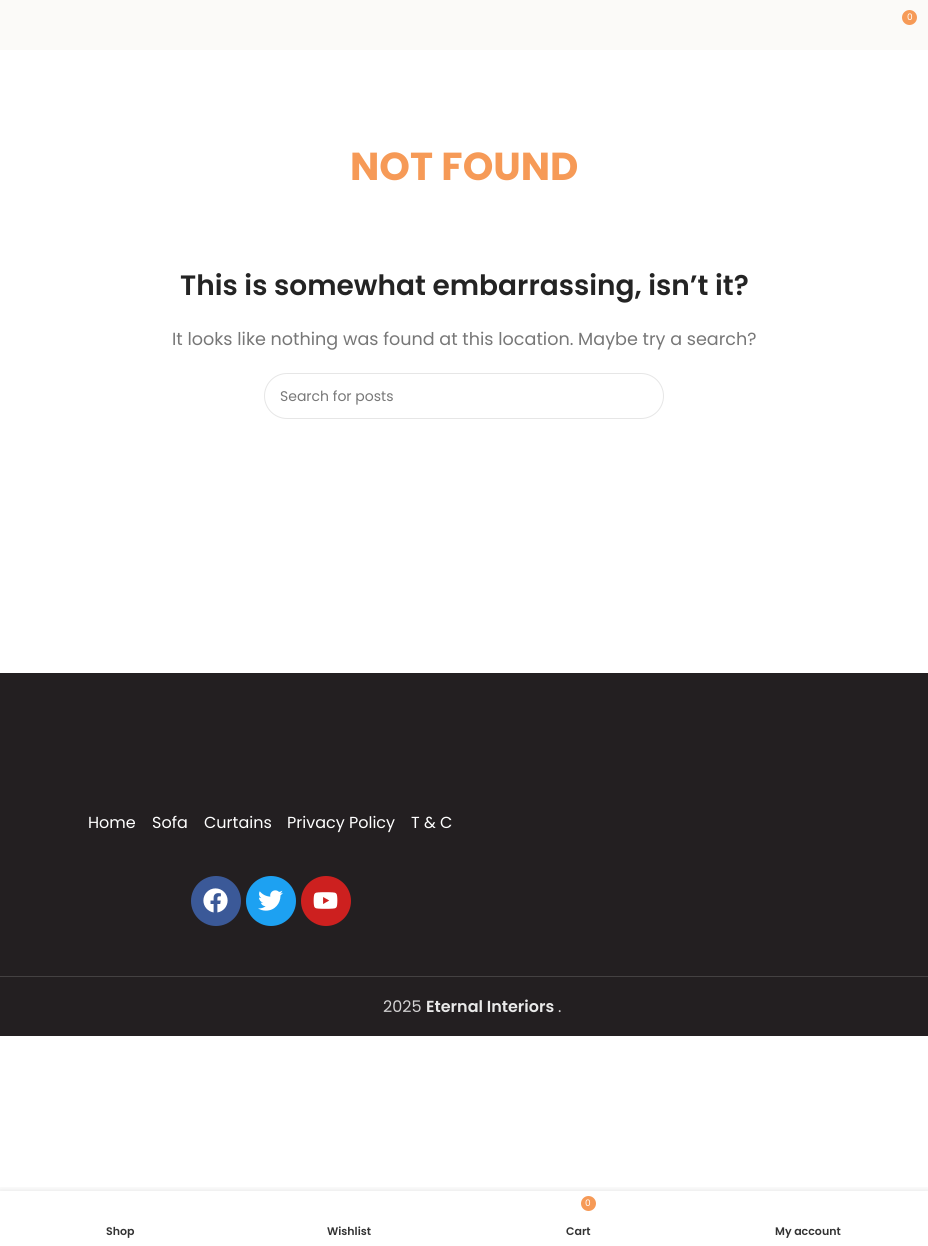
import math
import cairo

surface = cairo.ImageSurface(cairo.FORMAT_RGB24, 928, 1246)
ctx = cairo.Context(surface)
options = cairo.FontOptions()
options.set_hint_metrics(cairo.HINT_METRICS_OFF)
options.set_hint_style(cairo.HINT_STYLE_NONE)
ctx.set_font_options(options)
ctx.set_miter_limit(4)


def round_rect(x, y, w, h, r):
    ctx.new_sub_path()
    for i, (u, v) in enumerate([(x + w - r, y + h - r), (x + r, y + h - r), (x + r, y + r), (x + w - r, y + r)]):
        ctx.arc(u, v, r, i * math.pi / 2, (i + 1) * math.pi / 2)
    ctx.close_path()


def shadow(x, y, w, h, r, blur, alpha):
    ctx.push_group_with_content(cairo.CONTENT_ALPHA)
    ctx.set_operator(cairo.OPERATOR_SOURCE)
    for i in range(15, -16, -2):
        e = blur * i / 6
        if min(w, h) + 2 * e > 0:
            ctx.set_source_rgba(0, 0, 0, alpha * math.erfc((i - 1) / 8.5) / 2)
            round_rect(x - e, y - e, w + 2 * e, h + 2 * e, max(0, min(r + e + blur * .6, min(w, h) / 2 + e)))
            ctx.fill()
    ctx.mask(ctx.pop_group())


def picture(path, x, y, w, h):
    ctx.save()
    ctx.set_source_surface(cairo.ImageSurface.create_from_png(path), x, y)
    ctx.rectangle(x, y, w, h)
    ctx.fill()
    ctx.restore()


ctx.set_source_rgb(1, 1, 1)
ctx.paint()
ctx.set_source_rgb(0.984, 0.98, 0.969)
ctx.rectangle(0, 0, 928, 50)
ctx.fill()
ctx.set_source_rgb(0.961, 0.604, 0.341)
ctx.arc(909.5, 17.5, 7.5, 0, 2 * math.pi)
ctx.fill()
ctx.select_font_face("Poppins")
ctx.set_font_size(9)
ctx.set_source_rgb(1, 1, 1)
ctx.move_to(907, 20)
ctx.show_text("0")
ctx.select_font_face("Poppins", cairo.FONT_SLANT_NORMAL, cairo.FONT_WEIGHT_BOLD)
ctx.set_font_size(39)
ctx.set_source_rgb(0.961, 0.604, 0.341)
ctx.move_to(350, 180)
ctx.show_text("NOT FOUND")
ctx.select_font_face("Poppins SemiBold")
ctx.set_font_size(28)
ctx.set_source_rgb(0.141, 0.141, 0.141)
ctx.move_to(180, 295)
ctx.show_text("This is somewhat embarrassing, isn’t it?")
ctx.select_font_face("Poppins")
ctx.set_font_size(17.6)
ctx.set_source_rgb(0.467, 0.467, 0.467)
ctx.move_to(172, 345)
ctx.show_text("It looks like nothing was found at this location. Maybe try a search?")
round_rect(264.5, 373.5, 399, 45, 22.5)
ctx.set_source_rgb(0.902, 0.902, 0.902)
ctx.set_line_width(1)
ctx.stroke()
ctx.set_font_size(14)
ctx.set_source_rgb(0.467, 0.467, 0.467)
ctx.move_to(280, 401)
ctx.show_text("Search for posts")
ctx.set_source_rgb(0.137, 0.122, 0.129)
ctx.rectangle(0, 673, 928, 363)
ctx.fill()
ctx.set_font_size(16)
ctx.set_source_rgb(1, 1, 1)
ctx.move_to(88, 828)
ctx.show_text("Home")
ctx.move_to(152, 828)
ctx.show_text("Sofa")
ctx.move_to(204, 828)
ctx.show_text("Curtains")
ctx.move_to(287, 828)
ctx.show_text("Privacy Policy")
ctx.move_to(411, 828)
ctx.show_text("T & C")
ctx.set_source_rgb(0.231, 0.349, 0.596)
ctx.new_path()
ctx.arc(216, 901, 25, 0, 2 * math.pi)
ctx.fill()
picture("img1.png", 203, 888, 25, 25)
ctx.set_source_rgb(0.114, 0.631, 0.949)
ctx.arc(271, 901, 25, 0, 2 * math.pi)
ctx.fill()
picture("img2.png", 258, 890, 25, 21)
ctx.set_source_rgb(0.804, 0.125, 0.122)
ctx.arc(326, 901, 25, 0, 2 * math.pi)
ctx.fill()
picture("img3.png", 313, 892, 25, 17)
ctx.set_source_rgb(0.267, 0.255, 0.259)
ctx.rectangle(0, 976, 928, 1)
ctx.fill()
ctx.set_source_rgb(0.827, 0.824, 0.827)
ctx.move_to(383, 1012)
ctx.show_text("2025")
ctx.select_font_face("Poppins SemiBold")
ctx.set_source_rgb(0.914, 0.914, 0.914)
ctx.move_to(426, 1012)
ctx.show_text("Eternal Interiors")
ctx.select_font_face("Poppins")
ctx.set_source_rgb(0.827, 0.824, 0.827)
ctx.move_to(558, 1012)
ctx.show_text(".")
ctx.save()
ctx.rectangle(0, 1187, 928, 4)
ctx.clip()
ctx.set_source_rgb(0, 0, 0)
shadow(0, 1191, 928, 55, 0, 4.5, 0.12)
ctx.restore()
ctx.select_font_face("Poppins SemiBold")
ctx.set_font_size(11)
ctx.set_source_rgb(0.2, 0.2, 0.2)
ctx.move_to(106, 1235)
ctx.show_text("Shop")
ctx.move_to(327, 1235)
ctx.show_text("Wishlist")
ctx.set_source_rgb(0.961, 0.604, 0.341)
ctx.new_path()
ctx.arc(588.5, 1203.5, 7.5, 0, 2 * math.pi)
ctx.fill()
ctx.select_font_face("Poppins")
ctx.set_font_size(9)
ctx.set_source_rgb(1, 1, 1)
ctx.move_to(585, 1206)
ctx.show_text("0")
ctx.select_font_face("Poppins SemiBold")
ctx.set_font_size(11)
ctx.set_source_rgb(0.2, 0.2, 0.2)
ctx.move_to(566, 1235)
ctx.show_text("Cart")
ctx.move_to(775, 1235)
ctx.show_text("My account")
surface.write_to_png("page.png")
